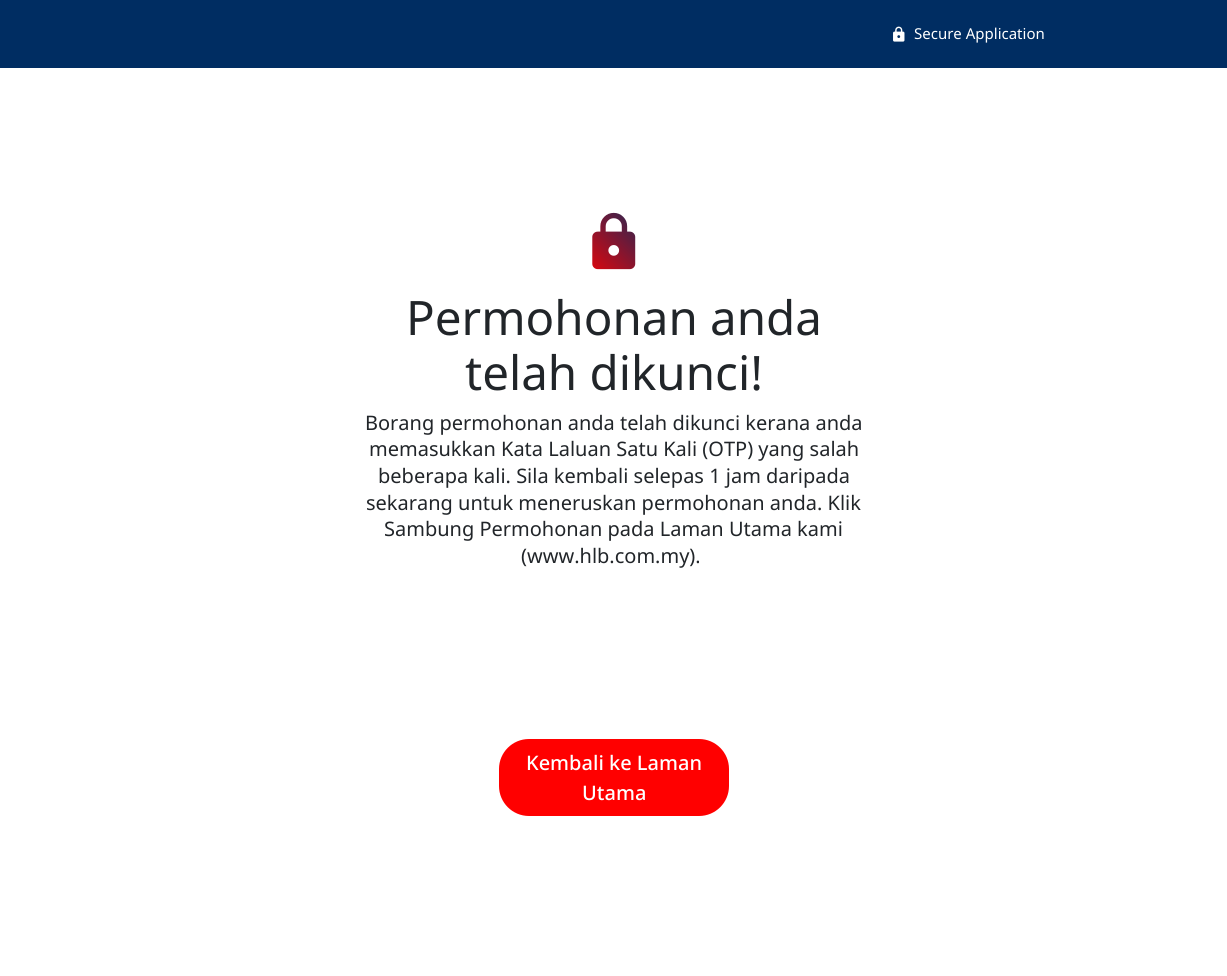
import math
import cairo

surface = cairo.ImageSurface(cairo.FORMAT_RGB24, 1227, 976)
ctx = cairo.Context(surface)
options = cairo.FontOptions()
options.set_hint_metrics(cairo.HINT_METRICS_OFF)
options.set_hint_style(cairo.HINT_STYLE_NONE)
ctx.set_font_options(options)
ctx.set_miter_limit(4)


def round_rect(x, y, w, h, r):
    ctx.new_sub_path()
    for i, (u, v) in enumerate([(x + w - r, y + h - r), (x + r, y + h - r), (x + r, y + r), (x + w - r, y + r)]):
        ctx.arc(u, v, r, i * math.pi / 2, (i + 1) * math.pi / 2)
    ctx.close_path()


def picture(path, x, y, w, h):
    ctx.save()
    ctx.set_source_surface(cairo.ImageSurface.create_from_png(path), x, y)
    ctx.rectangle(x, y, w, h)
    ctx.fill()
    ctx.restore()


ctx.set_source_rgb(1, 1, 1)
ctx.paint()
ctx.set_source_rgb(0, 0.176, 0.384)
ctx.rectangle(0, 0, 1227, 68)
ctx.fill()
picture("img1.png", 893, 26, 12, 16)
ctx.select_font_face("Noto Sans")
ctx.set_font_size(15)
ctx.set_source_rgb(1, 1, 1)
ctx.move_to(914, 39)
ctx.show_text("Secure Application")
picture("img2.png", 592, 212, 44, 58)
ctx.set_font_size(47.5)
ctx.set_source_rgb(0.129, 0.145, 0.161)
ctx.move_to(406, 335)
ctx.show_text("Permohonan anda")
ctx.move_to(465, 390)
ctx.show_text("telah dikunci!")
ctx.set_font_size(20)
ctx.move_to(365, 430)
ctx.show_text("Borang permohonan anda telah dikunci kerana anda")
ctx.move_to(369, 456)
ctx.show_text("memasukkan Kata Laluan Satu Kali (OTP) yang salah")
ctx.move_to(378, 483)
ctx.show_text("beberapa kali. Sila kembali selepas 1 jam daripada")
ctx.move_to(366, 510)
ctx.show_text("sekarang untuk meneruskan permohonan anda. Klik")
ctx.move_to(384, 536)
ctx.show_text("Sambung Permohonan pada Laman Utama kami")
ctx.move_to(521, 563)
ctx.show_text("(www.hlb.com.my).")
ctx.set_source_rgb(1, 0, 0)
round_rect(499, 739, 230, 77, 30)
ctx.fill()
ctx.select_font_face("Noto Sans Medium")
ctx.set_source_rgb(1, 1, 1)
ctx.move_to(526, 770)
ctx.show_text("Kembali ke Laman")
ctx.move_to(582, 800)
ctx.show_text("Utama")
surface.write_to_png("page.png")
